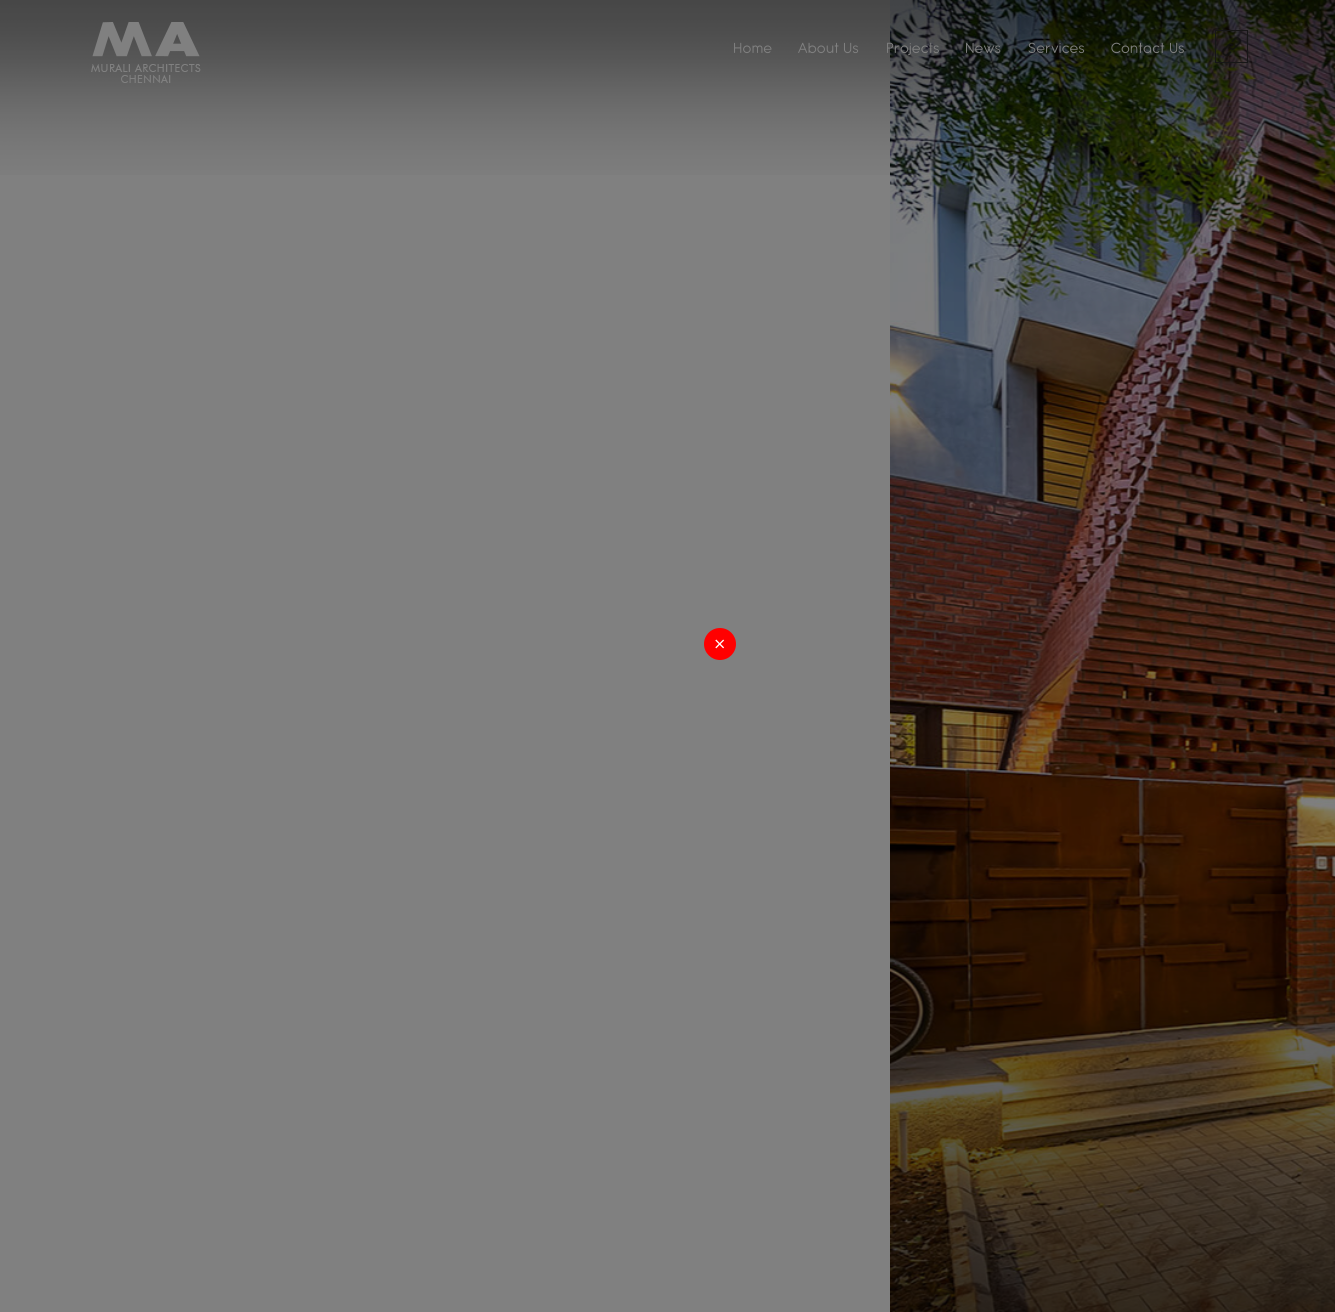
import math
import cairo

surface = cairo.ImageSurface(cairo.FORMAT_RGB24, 1335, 1312)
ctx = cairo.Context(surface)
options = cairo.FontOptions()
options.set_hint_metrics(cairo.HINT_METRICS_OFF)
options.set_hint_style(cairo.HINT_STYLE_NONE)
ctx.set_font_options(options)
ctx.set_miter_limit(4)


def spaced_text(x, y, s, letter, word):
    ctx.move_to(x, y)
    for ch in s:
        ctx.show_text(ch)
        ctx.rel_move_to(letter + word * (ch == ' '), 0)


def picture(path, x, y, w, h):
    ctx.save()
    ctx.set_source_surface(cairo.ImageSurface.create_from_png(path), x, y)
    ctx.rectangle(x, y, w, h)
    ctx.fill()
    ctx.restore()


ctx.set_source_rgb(0.502, 0.502, 0.502)
ctx.paint()
picture("img2.png", 890, 0, 445, 1312)
picture("img1.png", 0, 0, 1335, 175)
picture("img3.png", 91, 22, 110, 61)
ctx.select_font_face("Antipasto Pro")
ctx.set_font_size(16)
ctx.set_source_rgb(0.502, 0.502, 0.502)
spaced_text(733, 53, "Home", 0.5, 0)
spaced_text(798, 53, "About Us", 0.5, 0)
spaced_text(886, 53, "Projects", 0.5, 0)
spaced_text(965, 53, "News", 0.5, 0)
spaced_text(1028, 53, "Services", 0.5, 0)
spaced_text(1111, 53, "Contact Us", 0.5, 0)
ctx.rectangle(1215.5, 30.5, 32, 32)
ctx.set_source_rgb(0.09, 0.09, 0.09)
ctx.set_line_width(1)
ctx.stroke()
picture("img4.png", 1221, 37, 21, 20)
ctx.set_source_rgb(1, 0, 0)
ctx.arc(720, 644, 16, 0, 2 * math.pi)
ctx.fill()
ctx.select_font_face("Open Sans")
ctx.set_font_size(20)
ctx.set_source_rgb(1, 1, 1)
spaced_text(714, 651, "×", 0.5, 0)
surface.write_to_png("page.png")
